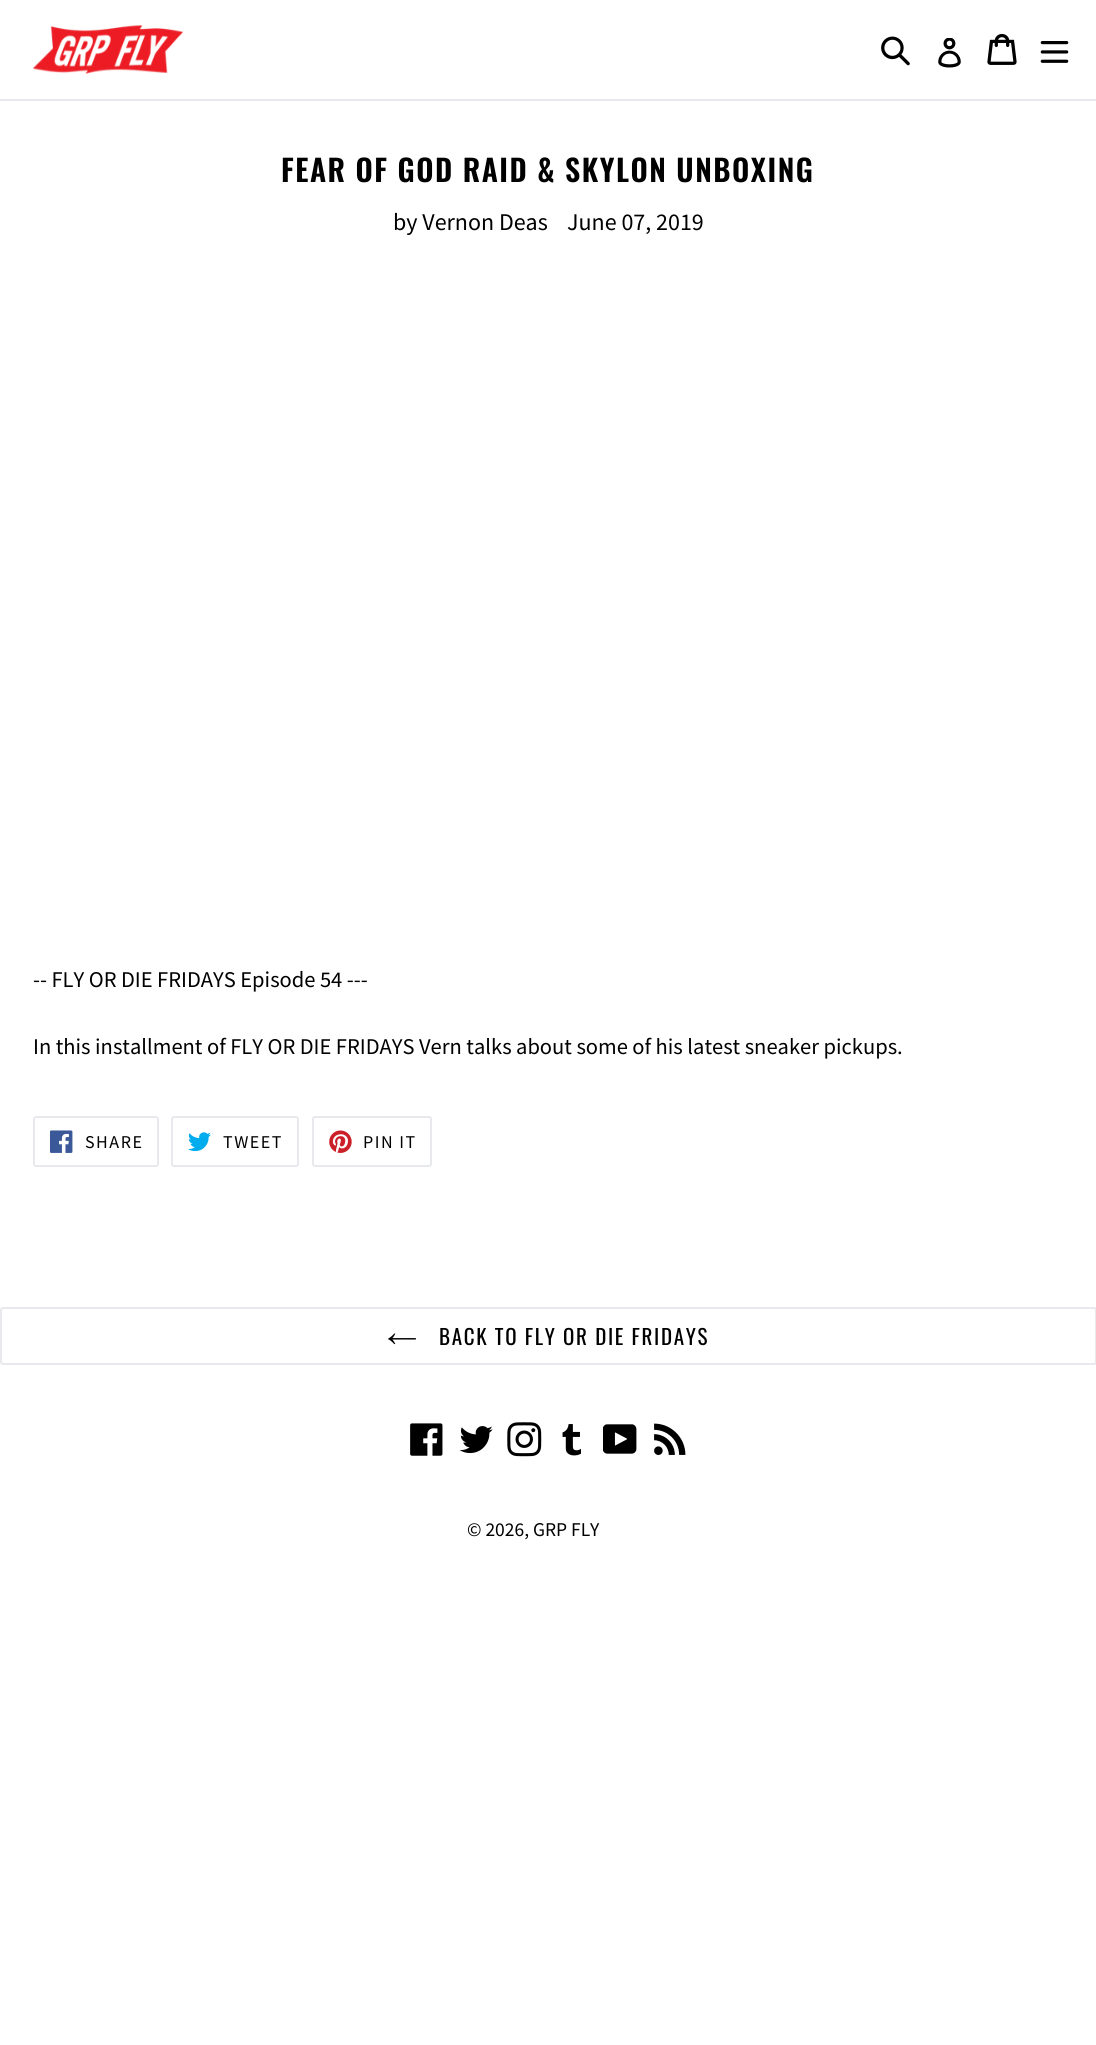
import math
import cairo

surface = cairo.ImageSurface(cairo.FORMAT_RGB24, 1096, 2045)
ctx = cairo.Context(surface)
options = cairo.FontOptions()
options.set_hint_metrics(cairo.HINT_METRICS_OFF)
options.set_hint_style(cairo.HINT_STYLE_NONE)
ctx.set_font_options(options)
ctx.set_miter_limit(4)


def spaced_text(x, y, s, letter, word):
    ctx.move_to(x, y)
    for ch in s:
        ctx.show_text(ch)
        ctx.rel_move_to(letter + word * (ch == ' '), 0)


def round_rect(x, y, w, h, r):
    ctx.new_sub_path()
    for i, (u, v) in enumerate([(x + w - r, y + h - r), (x + r, y + h - r), (x + r, y + r), (x + w - r, y + r)]):
        ctx.arc(u, v, r, i * math.pi / 2, (i + 1) * math.pi / 2)
    ctx.close_path()


def picture(path, x, y, w, h):
    ctx.save()
    ctx.set_source_surface(cairo.ImageSurface.create_from_png(path), x, y)
    ctx.rectangle(x, y, w, h)
    ctx.fill()
    ctx.restore()


ctx.set_source_rgb(1, 1, 1)
ctx.paint()
ctx.set_source_rgb(0.91, 0.914, 0.922)
ctx.rectangle(0, 99, 1096, 2)
ctx.fill()
picture("img1.png", 33, 25, 150, 49)
picture("img2.png", 881, 36, 29, 30)
picture("img3.png", 938, 38, 23, 30)
picture("img4.png", 987, 33, 30, 32)
picture("img5.png", 1040, 41, 29, 22)
ctx.select_font_face("Oswald SemiBold")
ctx.set_font_size(30)
ctx.set_source_rgb(0, 0, 0)
spaced_text(281, 182, "FEAR OF GOD RAID & SKYLON UNBOXING", 1.5, 0)
ctx.select_font_face("Source Sans Pro")
ctx.set_font_size(24)
ctx.move_to(393, 230)
ctx.show_text("by Vernon Deas")
ctx.move_to(567, 230)
ctx.show_text("June 07, 2019")
ctx.set_font_size(22.5)
ctx.move_to(33, 987)
ctx.show_text("-- FLY OR DIE FRIDAYS Episode 54 ---")
ctx.move_to(33, 1054)
ctx.show_text("In this installment of FLY OR DIE FRIDAYS Vern talks about some of his latest sneaker pickups.")
round_rect(34, 1117, 124, 49, 2)
ctx.set_source_rgb(0.91, 0.914, 0.922)
ctx.stroke()
picture("img6.png", 50, 1130, 23, 23)
ctx.set_font_size(18)
ctx.set_source_rgb(0, 0, 0)
spaced_text(85, 1148, "SHARE", 1.5, 0)
round_rect(172, 1117, 126, 49, 2)
ctx.set_source_rgb(0.91, 0.914, 0.922)
ctx.stroke()
picture("img7.png", 188, 1132, 23, 20)
ctx.set_source_rgb(0, 0, 0)
spaced_text(223, 1148, "TWEET", 1.5, 0)
round_rect(313, 1117, 118, 49, 2)
ctx.set_source_rgb(0.91, 0.914, 0.922)
ctx.stroke()
picture("img8.png", 329, 1130, 23, 23)
ctx.set_source_rgb(0, 0, 0)
spaced_text(363, 1148, "PIN IT", 1.5, 0)
round_rect(1, 1308, 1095, 56, 2)
ctx.set_source_rgb(0.91, 0.914, 0.922)
ctx.stroke()
picture("img9.png", 388, 1333, 28, 12)
ctx.select_font_face("Oswald")
ctx.set_font_size(21)
ctx.set_source_rgb(0, 0, 0)
spaced_text(439, 1345, "BACK TO FLY OR DIE FRIDAYS", 1.7, 0)
picture("img10.png", 410, 1423, 33, 33)
picture("img11.png", 459, 1426, 34, 28)
picture("img12.png", 507, 1422, 35, 35)
picture("img13.png", 562, 1424, 19, 32)
picture("img14.png", 603, 1424, 34, 30)
picture("img15.png", 654, 1423, 32, 32)
ctx.select_font_face("Source Sans Pro")
ctx.set_font_size(19.5)
ctx.move_to(467, 1536)
ctx.show_text("© 2026, GRP FLY")
surface.write_to_png("page.png")
